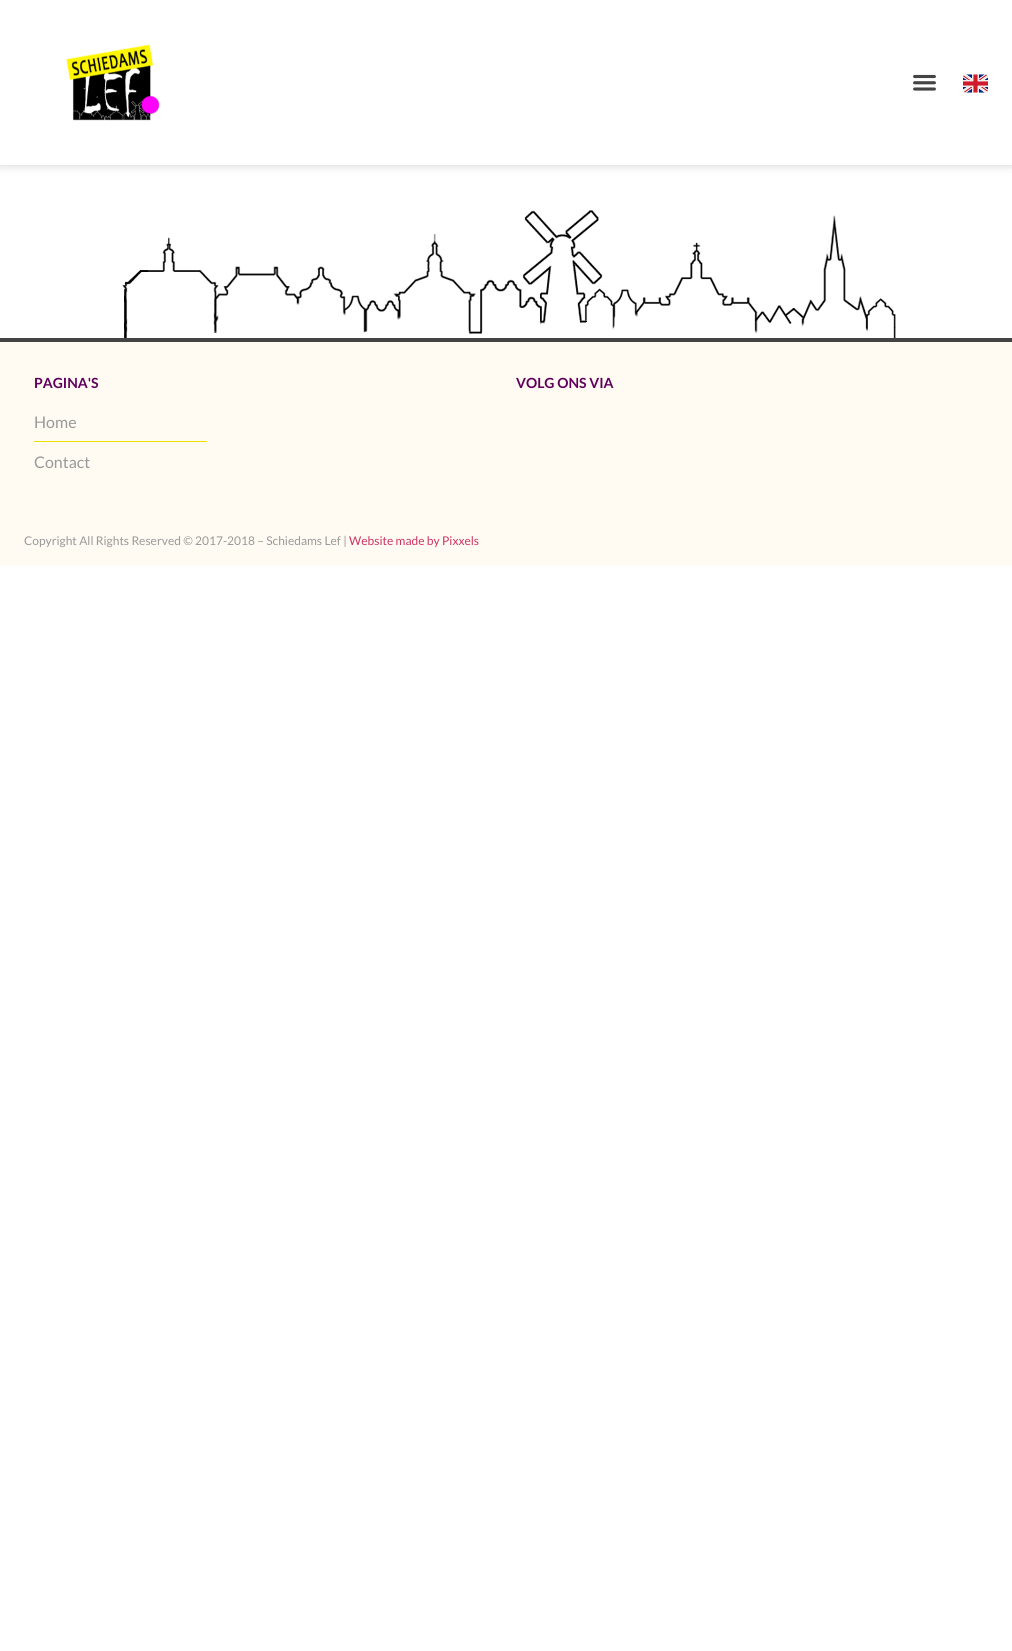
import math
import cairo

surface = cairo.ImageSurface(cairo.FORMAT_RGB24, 1012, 1651)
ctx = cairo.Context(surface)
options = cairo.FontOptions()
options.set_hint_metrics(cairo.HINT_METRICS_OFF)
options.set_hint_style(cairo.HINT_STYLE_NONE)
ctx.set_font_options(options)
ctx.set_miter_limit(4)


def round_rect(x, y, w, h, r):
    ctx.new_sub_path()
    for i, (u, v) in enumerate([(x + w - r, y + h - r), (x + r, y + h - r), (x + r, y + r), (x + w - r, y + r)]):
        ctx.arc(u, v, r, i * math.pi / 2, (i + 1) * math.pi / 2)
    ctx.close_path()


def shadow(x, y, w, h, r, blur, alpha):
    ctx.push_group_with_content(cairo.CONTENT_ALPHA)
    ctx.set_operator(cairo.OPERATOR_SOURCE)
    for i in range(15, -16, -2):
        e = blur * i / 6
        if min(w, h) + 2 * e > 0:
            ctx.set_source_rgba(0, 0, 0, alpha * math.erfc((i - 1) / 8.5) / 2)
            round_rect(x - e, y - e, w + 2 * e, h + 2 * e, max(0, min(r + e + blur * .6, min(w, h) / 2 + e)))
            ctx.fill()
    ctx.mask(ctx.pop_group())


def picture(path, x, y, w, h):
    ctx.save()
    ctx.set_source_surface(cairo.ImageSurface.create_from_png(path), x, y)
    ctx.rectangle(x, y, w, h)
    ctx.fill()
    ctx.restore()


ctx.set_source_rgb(1, 1, 1)
ctx.paint()
ctx.set_source_rgb(0, 0, 0)
shadow(0, 0, 1012, 165, 0, 5, 0.19)
ctx.set_source_rgb(1, 1, 1)
ctx.rectangle(0, 0, 1012, 165)
ctx.fill()
picture("img1.png", 66, 44, 94, 77)
picture("img2.png", 913, 74, 23, 17)
picture("img3.png", 963, 74, 25, 19)
ctx.set_source_rgb(0.267, 0.267, 0.267)
ctx.rectangle(0, 338, 1012, 4)
ctx.fill()
picture("img4.png", 122, 210, 774, 128)
ctx.set_source_rgb(1, 0.98, 0.949)
ctx.rectangle(0, 342, 1012, 223)
ctx.fill()
ctx.select_font_face("Lato", cairo.FONT_SLANT_NORMAL, cairo.FONT_WEIGHT_BOLD)
ctx.set_font_size(14)
ctx.set_source_rgb(0.376, 0, 0.361)
ctx.move_to(34, 388)
ctx.show_text("PAGINA'S")
ctx.select_font_face("Lato")
ctx.set_font_size(16)
ctx.set_source_rgb(0.6, 0.6, 0.6)
ctx.move_to(34, 428)
ctx.show_text("Home")
ctx.set_source_rgb(0.914, 0.886, 0)
ctx.rectangle(34, 441, 173, 1)
ctx.fill()
ctx.set_source_rgb(0.6, 0.6, 0.6)
ctx.move_to(34, 468)
ctx.show_text("Contact")
ctx.select_font_face("Lato", cairo.FONT_SLANT_NORMAL, cairo.FONT_WEIGHT_BOLD)
ctx.set_font_size(14)
ctx.set_source_rgb(0.376, 0, 0.361)
ctx.move_to(516, 388)
ctx.show_text("VOLG ONS VIA")
ctx.select_font_face("Lato")
ctx.set_font_size(12)
ctx.set_source_rgb(0.6, 0.6, 0.6)
ctx.move_to(24, 545)
ctx.show_text("Copyright All Rights Reserved © 2017-2018 – Schiedams Lef |")
ctx.set_source_rgb(0.8, 0.2, 0.4)
ctx.move_to(349, 545)
ctx.show_text("Website made by Pixxels")
surface.write_to_png("page.png")
